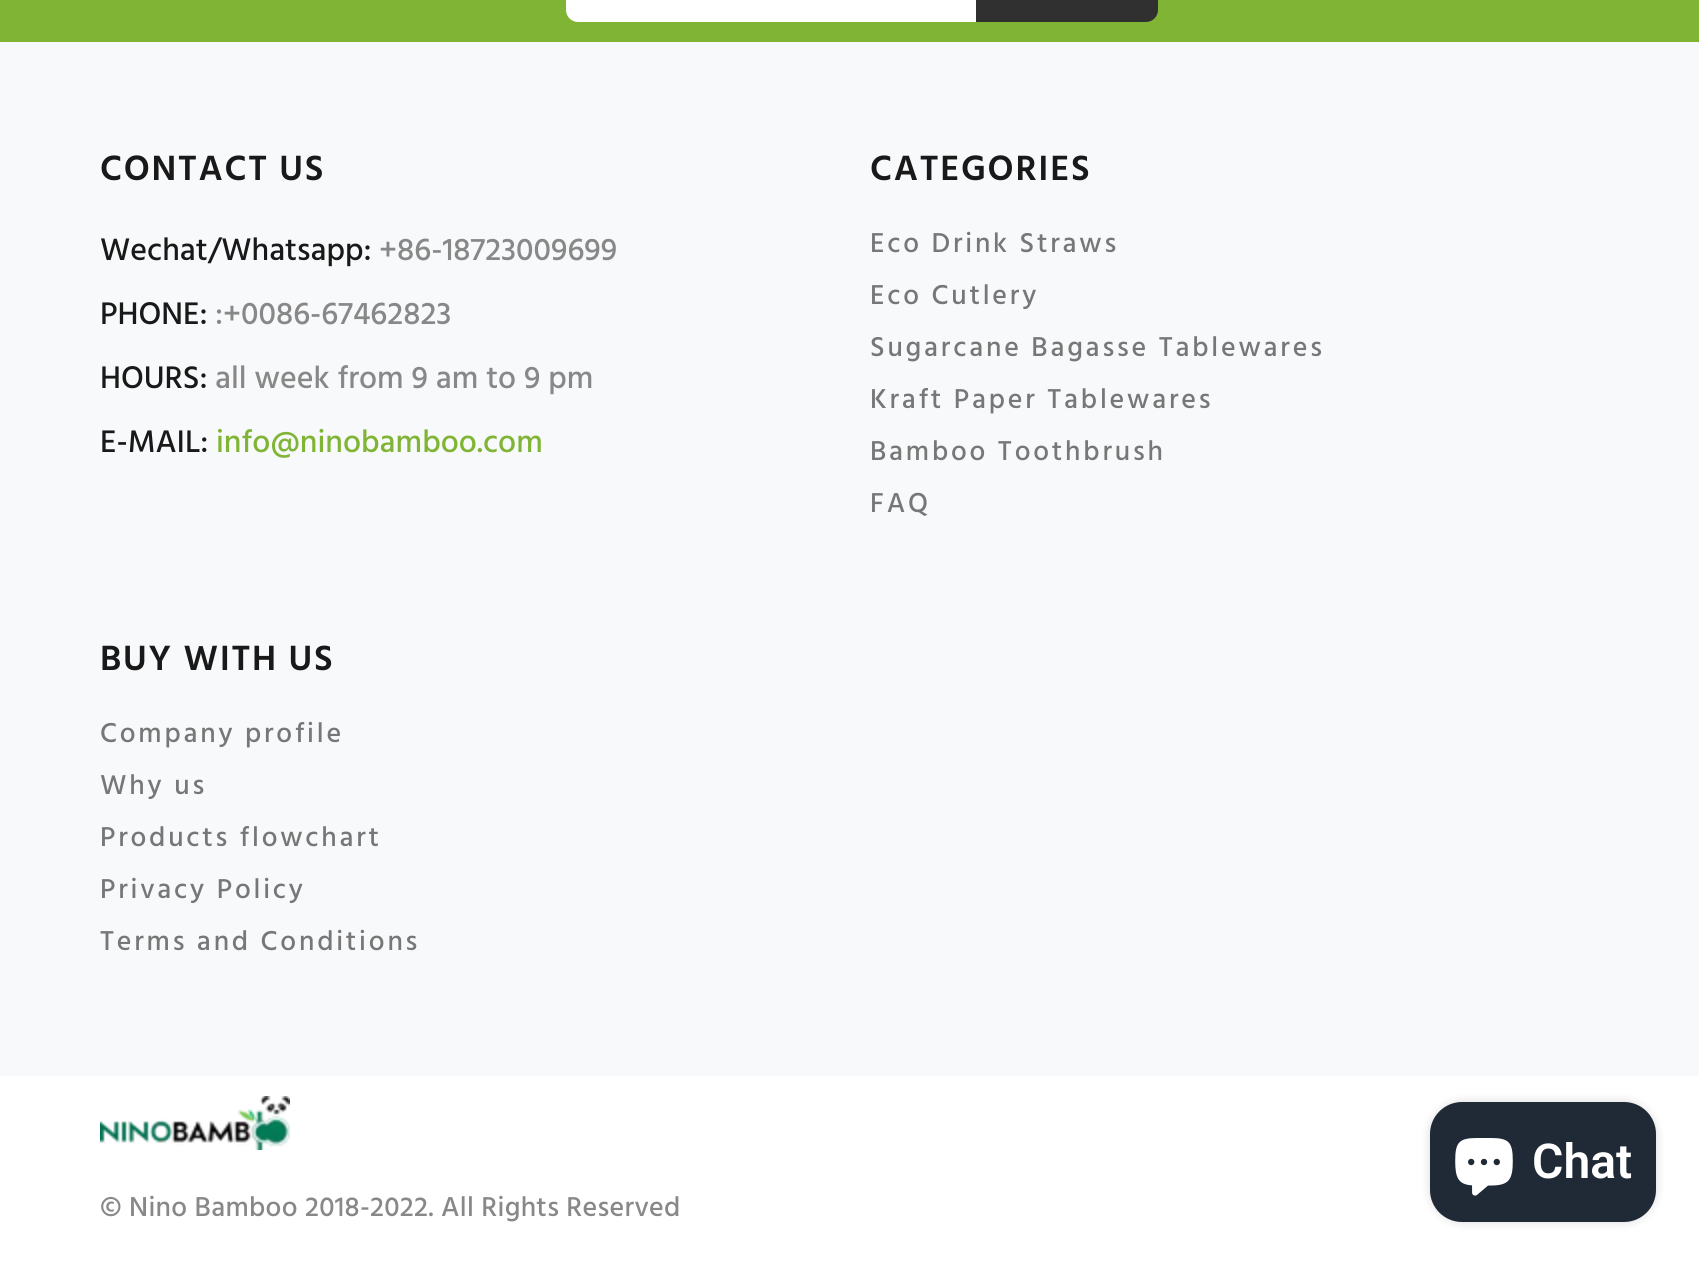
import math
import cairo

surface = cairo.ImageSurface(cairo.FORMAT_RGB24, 1699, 1264)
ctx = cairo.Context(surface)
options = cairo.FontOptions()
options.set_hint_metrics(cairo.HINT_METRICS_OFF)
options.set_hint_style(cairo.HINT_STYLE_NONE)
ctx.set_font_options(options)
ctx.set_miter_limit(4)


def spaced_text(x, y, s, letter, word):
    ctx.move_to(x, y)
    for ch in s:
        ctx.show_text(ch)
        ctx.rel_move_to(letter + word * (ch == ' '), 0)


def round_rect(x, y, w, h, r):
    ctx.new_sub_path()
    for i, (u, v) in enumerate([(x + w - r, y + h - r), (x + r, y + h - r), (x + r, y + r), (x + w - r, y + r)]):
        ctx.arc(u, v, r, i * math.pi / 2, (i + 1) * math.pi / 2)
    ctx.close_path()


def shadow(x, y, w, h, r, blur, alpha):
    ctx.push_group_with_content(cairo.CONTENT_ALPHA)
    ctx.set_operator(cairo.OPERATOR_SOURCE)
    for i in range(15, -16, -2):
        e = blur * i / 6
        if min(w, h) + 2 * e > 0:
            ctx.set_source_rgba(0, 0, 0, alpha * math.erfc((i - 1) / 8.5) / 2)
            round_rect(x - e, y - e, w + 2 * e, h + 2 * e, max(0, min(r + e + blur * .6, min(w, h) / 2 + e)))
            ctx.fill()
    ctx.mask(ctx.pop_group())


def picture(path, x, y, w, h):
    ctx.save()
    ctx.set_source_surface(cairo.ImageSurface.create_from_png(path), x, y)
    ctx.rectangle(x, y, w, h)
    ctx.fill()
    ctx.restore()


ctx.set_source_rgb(1, 1, 1)
ctx.paint()
ctx.set_source_rgb(0.502, 0.706, 0.208)
ctx.rectangle(0, 0, 1699, 42)
ctx.fill()
ctx.set_source_rgb(1, 1, 1)
ctx.new_path()
ctx.move_to(578, -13)
ctx.line_to(975, -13)
ctx.line_to(975, 21)
ctx.line_to(578, 21)
ctx.curve_to(572, 21, 567, 16, 567, 10)
ctx.line_to(567, -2)
ctx.curve_to(567, -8, 572, -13, 578, -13)
ctx.close_path()
ctx.fill_preserve()
ctx.stroke()
ctx.set_source_rgb(0.188, 0.188, 0.188)
ctx.new_path()
ctx.move_to(976, -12)
ctx.line_to(1146, -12)
ctx.curve_to(1152.5, -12, 1158, -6.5, 1158, 0)
ctx.line_to(1158, 10)
ctx.curve_to(1158, 16.5, 1152.5, 22, 1146, 22)
ctx.line_to(976, 22)
ctx.close_path()
ctx.fill()
ctx.set_source_rgb(0.969, 0.973, 0.98)
ctx.rectangle(0, 42, 1699, 1034)
ctx.fill()
ctx.select_font_face("Hind SemiBold")
ctx.set_font_size(36)
ctx.set_source_rgb(0.098, 0.098, 0.098)
spaced_text(100, 180, "CONTACT US", 1.75, 0)
ctx.select_font_face("Hind Medium")
ctx.set_font_size(32)
ctx.move_to(100, 260)
ctx.show_text("Wechat/Whatsapp:")
ctx.set_source_rgb(0.533, 0.533, 0.533)
ctx.move_to(379, 260)
ctx.show_text("+86-18723009699")
ctx.set_source_rgb(0.098, 0.098, 0.098)
ctx.move_to(100, 324)
ctx.show_text("PHONE:")
ctx.set_source_rgb(0.533, 0.533, 0.533)
ctx.move_to(215, 324)
ctx.show_text(":+0086-67462823")
ctx.set_source_rgb(0.098, 0.098, 0.098)
ctx.move_to(100, 388)
ctx.show_text("HOURS:")
ctx.set_source_rgb(0.533, 0.533, 0.533)
ctx.move_to(215, 388)
ctx.show_text("all week from 9 am to 9 pm")
ctx.set_source_rgb(0.098, 0.098, 0.098)
ctx.move_to(100, 452)
ctx.show_text("E-MAIL:")
ctx.set_source_rgb(0.502, 0.706, 0.208)
ctx.move_to(216, 452)
ctx.show_text("info@ninobamboo.com")
ctx.select_font_face("Hind SemiBold")
ctx.set_font_size(36)
ctx.set_source_rgb(0.098, 0.098, 0.098)
spaced_text(870, 180, "CATEGORIES", 1.75, 0)
ctx.select_font_face("Hind Medium")
ctx.set_font_size(28)
ctx.set_source_rgb(0.467, 0.467, 0.467)
spaced_text(870, 252, "Eco Drink Straws", 2.8, 0)
spaced_text(870, 304, "Eco Cutlery", 2.8, 0)
spaced_text(870, 356, "Sugarcane Bagasse Tablewares", 2.8, 0)
spaced_text(870, 408, "Kraft Paper Tablewares", 2.8, 0)
spaced_text(870, 460, "Bamboo Toothbrush", 2.8, 0)
spaced_text(870, 512, "FAQ", 2.8, 0)
ctx.select_font_face("Hind SemiBold")
ctx.set_font_size(36)
ctx.set_source_rgb(0.098, 0.098, 0.098)
spaced_text(100, 670, "BUY WITH US", 1.75, 0)
ctx.select_font_face("Hind Medium")
ctx.set_font_size(28)
ctx.set_source_rgb(0.467, 0.467, 0.467)
spaced_text(100, 742, "Company profile", 2.8, 0)
spaced_text(100, 794, "Why us", 2.8, 0)
spaced_text(100, 846, "Products flowchart", 2.8, 0)
spaced_text(100, 898, "Privacy Policy", 2.8, 0)
spaced_text(100, 950, "Terms and Conditions", 2.8, 0)
picture("img1.png", 100, 1096, 190, 54)
ctx.set_source_rgb(0.533, 0.533, 0.533)
spaced_text(100, 1216, "© Nino Bamboo 2018-2022. All Rights Reserved", 0.3, 0)
ctx.set_source_rgb(0, 0, 0)
shadow(1430, 1102, 226, 120, 32, 5, 0.15)
ctx.set_source_rgb(0.125, 0.165, 0.212)
round_rect(1430, 1102, 226, 120, 32)
ctx.fill()
picture("img2.png", 1455, 1138, 58, 58)
ctx.select_font_face("Roboto SemiBold")
ctx.set_font_size(48)
ctx.set_source_rgb(1, 1, 1)
ctx.move_to(1532, 1178)
ctx.show_text("Chat")
surface.write_to_png("page.png")
